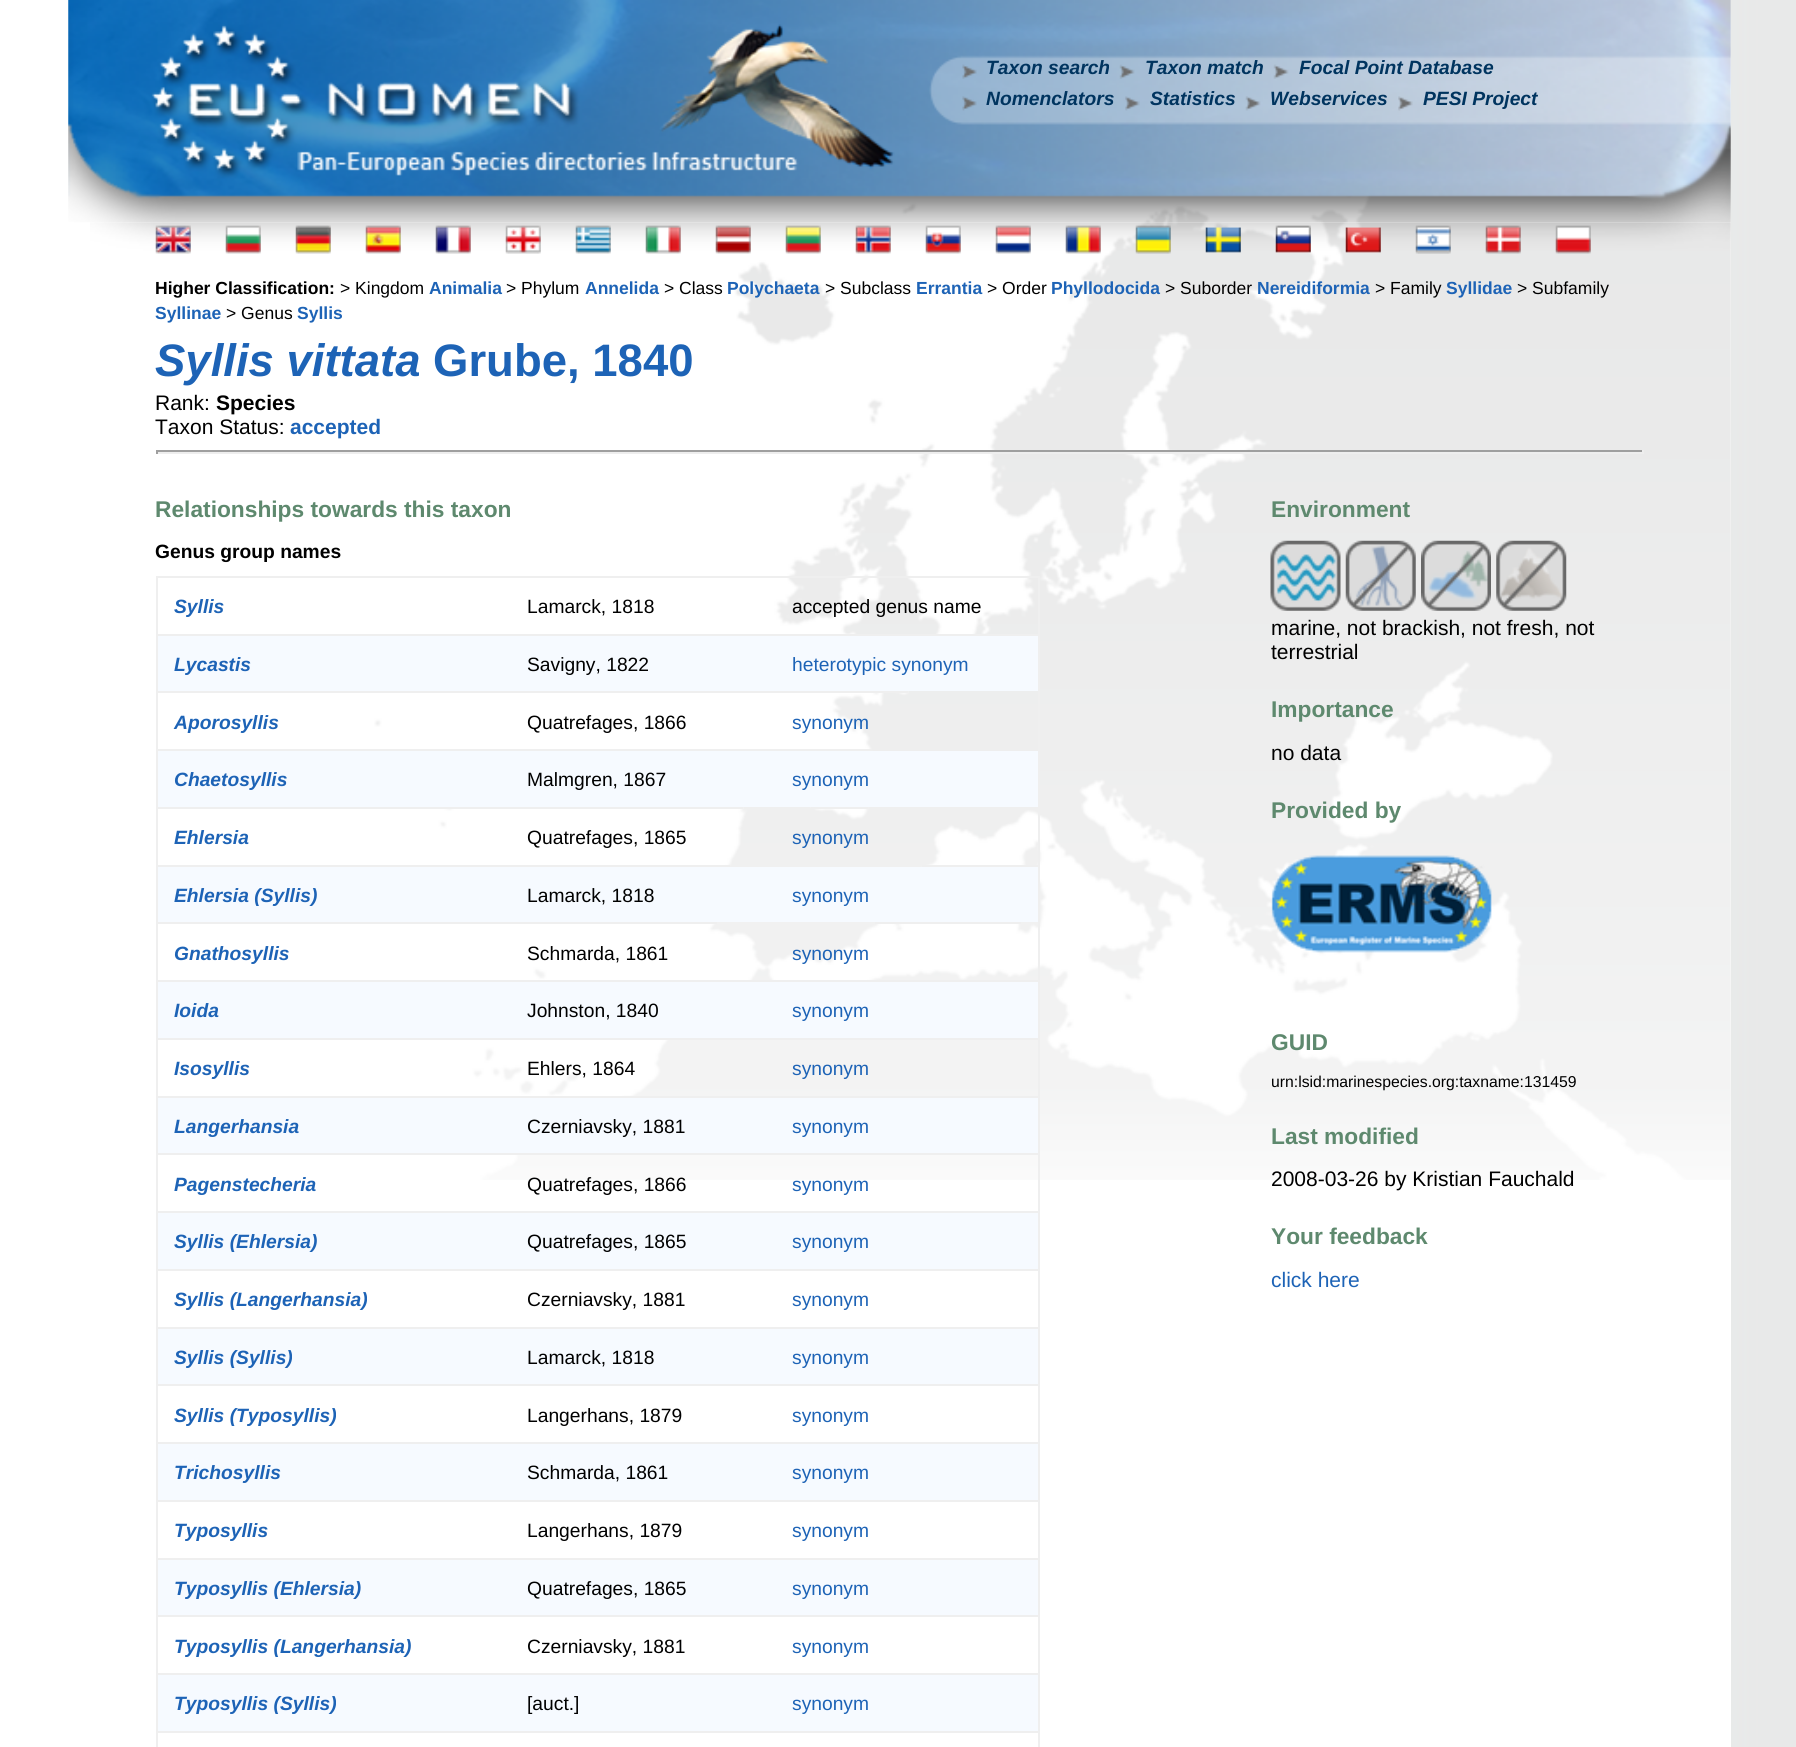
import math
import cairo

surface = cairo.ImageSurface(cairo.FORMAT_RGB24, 1796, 1747)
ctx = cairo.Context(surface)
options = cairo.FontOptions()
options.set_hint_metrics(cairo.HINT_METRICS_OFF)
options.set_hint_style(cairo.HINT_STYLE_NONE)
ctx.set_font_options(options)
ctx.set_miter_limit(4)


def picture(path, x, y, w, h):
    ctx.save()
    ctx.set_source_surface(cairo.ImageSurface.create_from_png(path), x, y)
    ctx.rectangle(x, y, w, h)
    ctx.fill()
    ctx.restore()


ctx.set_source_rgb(1, 1, 1)
ctx.paint()
picture("img1.png", 1731, 0, 65, 1747)
picture("img2.png", 68, 0, 1663, 223)
picture("img3.png", 962, 64, 15, 15)
ctx.select_font_face("Liberation Sans", cairo.FONT_SLANT_ITALIC, cairo.FONT_WEIGHT_BOLD)
ctx.set_font_size(19.25)
ctx.set_source_rgb(0, 0.204, 0.373)
ctx.move_to(986, 74)
ctx.show_text("Taxon search")
picture("img4.png", 1119, 64, 16, 15)
ctx.move_to(1145, 74)
ctx.show_text("Taxon match")
picture("img5.png", 1273, 64, 16, 15)
ctx.move_to(1299, 74)
ctx.show_text("Focal Point Database")
picture("img6.png", 962, 96, 15, 15)
ctx.move_to(986, 105)
ctx.show_text("Nomenclators")
picture("img7.png", 1125, 96, 15, 15)
ctx.move_to(1150, 105)
ctx.show_text("Statistics")
picture("img8.png", 1245, 96, 16, 15)
ctx.move_to(1270, 105)
ctx.show_text("Webservices")
picture("img9.png", 1398, 96, 15, 15)
ctx.move_to(1423, 105)
ctx.show_text("PESI Project")
picture("img10.png", 90, 222, 1641, 958)
picture("img11.png", 155, 225, 36, 29)
picture("img12.png", 225, 225, 36, 29)
picture("img13.png", 295, 225, 36, 29)
picture("img14.png", 365, 225, 36, 29)
picture("img15.png", 435, 225, 36, 29)
picture("img16.png", 505, 225, 36, 29)
picture("img17.png", 575, 225, 36, 29)
picture("img18.png", 645, 225, 36, 29)
picture("img19.png", 715, 225, 36, 29)
picture("img20.png", 785, 225, 36, 29)
picture("img21.png", 855, 225, 36, 29)
picture("img22.png", 925, 225, 36, 29)
picture("img23.png", 995, 225, 36, 29)
picture("img24.png", 1065, 225, 36, 29)
picture("img25.png", 1135, 225, 36, 29)
picture("img26.png", 1205, 227, 36, 26)
picture("img27.png", 1275, 225, 36, 28)
picture("img28.png", 1345, 227, 36, 26)
picture("img29.png", 1415, 225, 36, 29)
picture("img30.png", 1485, 225, 36, 29)
picture("img31.png", 1555, 225, 36, 29)
ctx.select_font_face("Liberation Sans", cairo.FONT_SLANT_NORMAL, cairo.FONT_WEIGHT_BOLD)
ctx.set_font_size(17.5)
ctx.set_source_rgb(0, 0, 0)
ctx.move_to(155, 294)
ctx.show_text("Higher Classification:")
ctx.select_font_face("Liberation Sans")
ctx.move_to(340, 294)
ctx.show_text("> Kingdom")
ctx.select_font_face("Liberation Sans", cairo.FONT_SLANT_NORMAL, cairo.FONT_WEIGHT_BOLD)
ctx.set_source_rgb(0.114, 0.388, 0.714)
ctx.move_to(429, 294)
ctx.show_text("Animalia")
ctx.select_font_face("Liberation Sans")
ctx.set_source_rgb(0, 0, 0)
ctx.move_to(506, 294)
ctx.show_text("> Phylum")
ctx.select_font_face("Liberation Sans", cairo.FONT_SLANT_NORMAL, cairo.FONT_WEIGHT_BOLD)
ctx.set_source_rgb(0.114, 0.388, 0.714)
ctx.move_to(585, 294)
ctx.show_text("Annelida")
ctx.select_font_face("Liberation Sans")
ctx.set_source_rgb(0, 0, 0)
ctx.move_to(664, 294)
ctx.show_text("> Class")
ctx.select_font_face("Liberation Sans", cairo.FONT_SLANT_NORMAL, cairo.FONT_WEIGHT_BOLD)
ctx.set_source_rgb(0.114, 0.388, 0.714)
ctx.move_to(727, 294)
ctx.show_text("Polychaeta")
ctx.select_font_face("Liberation Sans")
ctx.set_source_rgb(0, 0, 0)
ctx.move_to(825, 294)
ctx.show_text("> Subclass")
ctx.select_font_face("Liberation Sans", cairo.FONT_SLANT_NORMAL, cairo.FONT_WEIGHT_BOLD)
ctx.set_source_rgb(0.114, 0.388, 0.714)
ctx.move_to(916, 294)
ctx.show_text("Errantia")
ctx.select_font_face("Liberation Sans")
ctx.set_source_rgb(0, 0, 0)
ctx.move_to(987, 294)
ctx.show_text("> Order")
ctx.select_font_face("Liberation Sans", cairo.FONT_SLANT_NORMAL, cairo.FONT_WEIGHT_BOLD)
ctx.set_source_rgb(0.114, 0.388, 0.714)
ctx.move_to(1051, 294)
ctx.show_text("Phyllodocida")
ctx.select_font_face("Liberation Sans")
ctx.set_source_rgb(0, 0, 0)
ctx.move_to(1165, 294)
ctx.show_text("> Suborder")
ctx.select_font_face("Liberation Sans", cairo.FONT_SLANT_NORMAL, cairo.FONT_WEIGHT_BOLD)
ctx.set_source_rgb(0.114, 0.388, 0.714)
ctx.move_to(1257, 294)
ctx.show_text("Nereidiformia")
ctx.select_font_face("Liberation Sans")
ctx.set_source_rgb(0, 0, 0)
ctx.move_to(1375, 294)
ctx.show_text("> Family")
ctx.select_font_face("Liberation Sans", cairo.FONT_SLANT_NORMAL, cairo.FONT_WEIGHT_BOLD)
ctx.set_source_rgb(0.114, 0.388, 0.714)
ctx.move_to(1446, 294)
ctx.show_text("Syllidae")
ctx.select_font_face("Liberation Sans")
ctx.set_source_rgb(0, 0, 0)
ctx.move_to(1517, 294)
ctx.show_text("> Subfamily")
ctx.select_font_face("Liberation Sans", cairo.FONT_SLANT_NORMAL, cairo.FONT_WEIGHT_BOLD)
ctx.set_source_rgb(0.114, 0.388, 0.714)
ctx.move_to(155, 319)
ctx.show_text("Syllinae")
ctx.select_font_face("Liberation Sans")
ctx.set_source_rgb(0, 0, 0)
ctx.move_to(226, 319)
ctx.show_text("> Genus")
ctx.select_font_face("Liberation Sans", cairo.FONT_SLANT_NORMAL, cairo.FONT_WEIGHT_BOLD)
ctx.set_source_rgb(0.114, 0.388, 0.714)
ctx.move_to(297, 319)
ctx.show_text("Syllis")
ctx.select_font_face("Liberation Sans", cairo.FONT_SLANT_ITALIC, cairo.FONT_WEIGHT_BOLD)
ctx.set_font_size(45.5)
ctx.move_to(155, 376)
ctx.show_text("Syllis vittata")
ctx.select_font_face("Liberation Sans", cairo.FONT_SLANT_NORMAL, cairo.FONT_WEIGHT_BOLD)
ctx.move_to(433, 376)
ctx.show_text("Grube, 1840")
ctx.select_font_face("Liberation Sans")
ctx.set_font_size(21)
ctx.set_source_rgb(0, 0, 0)
ctx.move_to(155, 410)
ctx.show_text("Rank:")
ctx.select_font_face("Liberation Sans", cairo.FONT_SLANT_NORMAL, cairo.FONT_WEIGHT_BOLD)
ctx.move_to(216, 410)
ctx.show_text("Species")
ctx.select_font_face("Liberation Sans")
ctx.move_to(155, 434)
ctx.show_text("Taxon Status:")
ctx.select_font_face("Liberation Sans", cairo.FONT_SLANT_NORMAL, cairo.FONT_WEIGHT_BOLD)
ctx.set_source_rgb(0.114, 0.388, 0.714)
ctx.move_to(290, 434)
ctx.show_text("accepted")
ctx.set_source_rgb(0.624, 0.624, 0.624)
ctx.rectangle(156, 450, 1487, 2)
ctx.fill()
ctx.set_source_rgb(0.933, 0.933, 0.933)
ctx.rectangle(1642, 450, 2, 4)
ctx.fill()
ctx.rectangle(156, 452, 1487, 2)
ctx.fill()
ctx.set_source_rgb(0.624, 0.624, 0.624)
ctx.rectangle(156, 450, 2, 4)
ctx.fill()
ctx.set_font_size(22.75)
ctx.set_source_rgb(0.369, 0.537, 0.431)
ctx.move_to(155, 517)
ctx.show_text("Relationships towards this taxon")
ctx.set_font_size(19.25)
ctx.set_source_rgb(0, 0, 0)
ctx.move_to(155, 558)
ctx.show_text("Genus group names")
ctx.set_source_rgb(0.937, 0.937, 0.937)
ctx.rectangle(156, 576, 884, 2)
ctx.fill()
ctx.rectangle(1038, 576, 2, 1171)
ctx.fill()
ctx.rectangle(156, 576, 2, 1171)
ctx.fill()
ctx.select_font_face("Liberation Sans", cairo.FONT_SLANT_ITALIC, cairo.FONT_WEIGHT_BOLD)
ctx.set_source_rgb(0.114, 0.388, 0.714)
ctx.move_to(174, 613)
ctx.show_text("Syllis")
ctx.select_font_face("Liberation Sans")
ctx.set_source_rgb(0, 0, 0)
ctx.move_to(527, 613)
ctx.show_text("Lamarck, 1818")
ctx.set_source_rgb(0.937, 0.937, 0.937)
ctx.rectangle(156, 634, 884, 2)
ctx.fill()
ctx.set_source_rgb(0, 0, 0)
ctx.move_to(792, 613)
ctx.show_text("accepted genus name")
ctx.set_source_rgb(0.961, 0.98, 1)
ctx.rectangle(158, 636, 880, 55)
ctx.fill()
ctx.select_font_face("Liberation Sans", cairo.FONT_SLANT_ITALIC, cairo.FONT_WEIGHT_BOLD)
ctx.set_source_rgb(0.114, 0.388, 0.714)
ctx.move_to(174, 671)
ctx.show_text("Lycastis")
ctx.select_font_face("Liberation Sans")
ctx.set_source_rgb(0, 0, 0)
ctx.move_to(527, 671)
ctx.show_text("Savigny, 1822")
ctx.set_source_rgb(0.937, 0.937, 0.937)
ctx.rectangle(156, 691, 752, 2)
ctx.fill()
ctx.set_source_rgb(0.114, 0.388, 0.714)
ctx.move_to(792, 671)
ctx.show_text("heterotypic synonym")
ctx.select_font_face("Liberation Sans", cairo.FONT_SLANT_ITALIC, cairo.FONT_WEIGHT_BOLD)
ctx.move_to(174, 729)
ctx.show_text("Aporosyllis")
ctx.select_font_face("Liberation Sans")
ctx.set_source_rgb(0, 0, 0)
ctx.move_to(527, 729)
ctx.show_text("Quatrefages, 1866")
ctx.set_source_rgb(0.937, 0.937, 0.937)
ctx.rectangle(156, 749, 716, 2)
ctx.fill()
ctx.set_source_rgb(0.114, 0.388, 0.714)
ctx.move_to(792, 729)
ctx.show_text("synonym")
ctx.set_source_rgb(0.961, 0.98, 1)
ctx.rectangle(158, 751, 880, 56)
ctx.fill()
ctx.select_font_face("Liberation Sans", cairo.FONT_SLANT_ITALIC, cairo.FONT_WEIGHT_BOLD)
ctx.set_source_rgb(0.114, 0.388, 0.714)
ctx.move_to(174, 786)
ctx.show_text("Chaetosyllis")
ctx.set_source_rgb(0.937, 0.937, 0.937)
ctx.rectangle(156, 807, 587, 2)
ctx.fill()
ctx.select_font_face("Liberation Sans")
ctx.set_source_rgb(0, 0, 0)
ctx.move_to(527, 786)
ctx.show_text("Malmgren, 1867")
ctx.set_source_rgb(0.937, 0.937, 0.937)
ctx.rectangle(811, 807, 57, 2)
ctx.fill()
ctx.set_source_rgb(0.114, 0.388, 0.714)
ctx.move_to(792, 786)
ctx.show_text("synonym")
ctx.select_font_face("Liberation Sans", cairo.FONT_SLANT_ITALIC, cairo.FONT_WEIGHT_BOLD)
ctx.move_to(174, 844)
ctx.show_text("Ehlersia")
ctx.set_source_rgb(0.937, 0.937, 0.937)
ctx.rectangle(156, 865, 574, 2)
ctx.fill()
ctx.select_font_face("Liberation Sans")
ctx.set_source_rgb(0, 0, 0)
ctx.move_to(527, 844)
ctx.show_text("Quatrefages, 1865")
ctx.set_source_rgb(0.937, 0.937, 0.937)
ctx.rectangle(922, 865, 118, 2)
ctx.fill()
ctx.set_source_rgb(0.114, 0.388, 0.714)
ctx.move_to(792, 844)
ctx.show_text("synonym")
ctx.set_source_rgb(0.961, 0.98, 1)
ctx.rectangle(158, 867, 880, 55)
ctx.fill()
ctx.select_font_face("Liberation Sans", cairo.FONT_SLANT_ITALIC, cairo.FONT_WEIGHT_BOLD)
ctx.set_source_rgb(0.114, 0.388, 0.714)
ctx.move_to(174, 902)
ctx.show_text("Ehlersia (Syllis)")
ctx.set_source_rgb(0.937, 0.937, 0.937)
ctx.rectangle(156, 922, 561, 2)
ctx.fill()
ctx.select_font_face("Liberation Sans")
ctx.set_source_rgb(0, 0, 0)
ctx.move_to(527, 902)
ctx.show_text("Lamarck, 1818")
ctx.set_source_rgb(0.937, 0.937, 0.937)
ctx.rectangle(875, 922, 146, 2)
ctx.fill()
ctx.set_source_rgb(0.114, 0.388, 0.714)
ctx.move_to(792, 902)
ctx.show_text("synonym")
ctx.select_font_face("Liberation Sans", cairo.FONT_SLANT_ITALIC, cairo.FONT_WEIGHT_BOLD)
ctx.move_to(174, 960)
ctx.show_text("Gnathosyllis")
ctx.select_font_face("Liberation Sans")
ctx.set_source_rgb(0, 0, 0)
ctx.move_to(527, 960)
ctx.show_text("Schmarda, 1861")
ctx.set_source_rgb(0.937, 0.937, 0.937)
ctx.rectangle(156, 980, 884, 2)
ctx.fill()
ctx.set_source_rgb(0.114, 0.388, 0.714)
ctx.move_to(792, 960)
ctx.show_text("synonym")
ctx.set_source_rgb(0.961, 0.98, 1)
ctx.rectangle(158, 982, 880, 56)
ctx.fill()
ctx.select_font_face("Liberation Sans", cairo.FONT_SLANT_ITALIC, cairo.FONT_WEIGHT_BOLD)
ctx.set_source_rgb(0.114, 0.388, 0.714)
ctx.move_to(174, 1017)
ctx.show_text("Ioida")
ctx.select_font_face("Liberation Sans")
ctx.set_source_rgb(0, 0, 0)
ctx.move_to(527, 1017)
ctx.show_text("Johnston, 1840")
ctx.set_source_rgb(0.937, 0.937, 0.937)
ctx.rectangle(156, 1038, 884, 2)
ctx.fill()
ctx.set_source_rgb(0.114, 0.388, 0.714)
ctx.move_to(792, 1017)
ctx.show_text("synonym")
ctx.select_font_face("Liberation Sans", cairo.FONT_SLANT_ITALIC, cairo.FONT_WEIGHT_BOLD)
ctx.move_to(174, 1075)
ctx.show_text("Isosyllis")
ctx.select_font_face("Liberation Sans")
ctx.set_source_rgb(0, 0, 0)
ctx.move_to(527, 1075)
ctx.show_text("Ehlers, 1864")
ctx.set_source_rgb(0.937, 0.937, 0.937)
ctx.rectangle(156, 1096, 884, 2)
ctx.fill()
ctx.set_source_rgb(0.114, 0.388, 0.714)
ctx.move_to(792, 1075)
ctx.show_text("synonym")
ctx.set_source_rgb(0.961, 0.98, 1)
ctx.rectangle(158, 1098, 880, 55)
ctx.fill()
ctx.select_font_face("Liberation Sans", cairo.FONT_SLANT_ITALIC, cairo.FONT_WEIGHT_BOLD)
ctx.set_source_rgb(0.114, 0.388, 0.714)
ctx.move_to(174, 1133)
ctx.show_text("Langerhansia")
ctx.select_font_face("Liberation Sans")
ctx.set_source_rgb(0, 0, 0)
ctx.move_to(527, 1133)
ctx.show_text("Czerniavsky, 1881")
ctx.set_source_rgb(0.937, 0.937, 0.937)
ctx.rectangle(156, 1153, 884, 2)
ctx.fill()
ctx.set_source_rgb(0.114, 0.388, 0.714)
ctx.move_to(792, 1133)
ctx.show_text("synonym")
ctx.select_font_face("Liberation Sans", cairo.FONT_SLANT_ITALIC, cairo.FONT_WEIGHT_BOLD)
ctx.move_to(174, 1191)
ctx.show_text("Pagenstecheria")
ctx.select_font_face("Liberation Sans")
ctx.set_source_rgb(0, 0, 0)
ctx.move_to(527, 1191)
ctx.show_text("Quatrefages, 1866")
ctx.set_source_rgb(0.937, 0.937, 0.937)
ctx.rectangle(156, 1211, 884, 2)
ctx.fill()
ctx.set_source_rgb(0.114, 0.388, 0.714)
ctx.move_to(792, 1191)
ctx.show_text("synonym")
ctx.set_source_rgb(0.961, 0.98, 1)
ctx.rectangle(158, 1213, 880, 56)
ctx.fill()
ctx.select_font_face("Liberation Sans", cairo.FONT_SLANT_ITALIC, cairo.FONT_WEIGHT_BOLD)
ctx.set_source_rgb(0.114, 0.388, 0.714)
ctx.move_to(174, 1248)
ctx.show_text("Syllis (Ehlersia)")
ctx.select_font_face("Liberation Sans")
ctx.set_source_rgb(0, 0, 0)
ctx.move_to(527, 1248)
ctx.show_text("Quatrefages, 1865")
ctx.set_source_rgb(0.937, 0.937, 0.937)
ctx.rectangle(156, 1269, 884, 2)
ctx.fill()
ctx.set_source_rgb(0.114, 0.388, 0.714)
ctx.move_to(792, 1248)
ctx.show_text("synonym")
ctx.select_font_face("Liberation Sans", cairo.FONT_SLANT_ITALIC, cairo.FONT_WEIGHT_BOLD)
ctx.move_to(174, 1306)
ctx.show_text("Syllis (Langerhansia)")
ctx.select_font_face("Liberation Sans")
ctx.set_source_rgb(0, 0, 0)
ctx.move_to(527, 1306)
ctx.show_text("Czerniavsky, 1881")
ctx.set_source_rgb(0.937, 0.937, 0.937)
ctx.rectangle(156, 1327, 884, 2)
ctx.fill()
ctx.set_source_rgb(0.114, 0.388, 0.714)
ctx.move_to(792, 1306)
ctx.show_text("synonym")
ctx.set_source_rgb(0.961, 0.98, 1)
ctx.rectangle(158, 1329, 880, 55)
ctx.fill()
ctx.select_font_face("Liberation Sans", cairo.FONT_SLANT_ITALIC, cairo.FONT_WEIGHT_BOLD)
ctx.set_source_rgb(0.114, 0.388, 0.714)
ctx.move_to(174, 1364)
ctx.show_text("Syllis (Syllis)")
ctx.select_font_face("Liberation Sans")
ctx.set_source_rgb(0, 0, 0)
ctx.move_to(527, 1364)
ctx.show_text("Lamarck, 1818")
ctx.set_source_rgb(0.937, 0.937, 0.937)
ctx.rectangle(156, 1384, 884, 2)
ctx.fill()
ctx.set_source_rgb(0.114, 0.388, 0.714)
ctx.move_to(792, 1364)
ctx.show_text("synonym")
ctx.select_font_face("Liberation Sans", cairo.FONT_SLANT_ITALIC, cairo.FONT_WEIGHT_BOLD)
ctx.move_to(174, 1422)
ctx.show_text("Syllis (Typosyllis)")
ctx.select_font_face("Liberation Sans")
ctx.set_source_rgb(0, 0, 0)
ctx.move_to(527, 1422)
ctx.show_text("Langerhans, 1879")
ctx.set_source_rgb(0.937, 0.937, 0.937)
ctx.rectangle(156, 1442, 884, 2)
ctx.fill()
ctx.set_source_rgb(0.114, 0.388, 0.714)
ctx.move_to(792, 1422)
ctx.show_text("synonym")
ctx.set_source_rgb(0.961, 0.98, 1)
ctx.rectangle(158, 1444, 880, 56)
ctx.fill()
ctx.select_font_face("Liberation Sans", cairo.FONT_SLANT_ITALIC, cairo.FONT_WEIGHT_BOLD)
ctx.set_source_rgb(0.114, 0.388, 0.714)
ctx.move_to(174, 1479)
ctx.show_text("Trichosyllis")
ctx.select_font_face("Liberation Sans")
ctx.set_source_rgb(0, 0, 0)
ctx.move_to(527, 1479)
ctx.show_text("Schmarda, 1861")
ctx.set_source_rgb(0.937, 0.937, 0.937)
ctx.rectangle(156, 1500, 884, 2)
ctx.fill()
ctx.set_source_rgb(0.114, 0.388, 0.714)
ctx.move_to(792, 1479)
ctx.show_text("synonym")
ctx.select_font_face("Liberation Sans", cairo.FONT_SLANT_ITALIC, cairo.FONT_WEIGHT_BOLD)
ctx.move_to(174, 1537)
ctx.show_text("Typosyllis")
ctx.select_font_face("Liberation Sans")
ctx.set_source_rgb(0, 0, 0)
ctx.move_to(527, 1537)
ctx.show_text("Langerhans, 1879")
ctx.set_source_rgb(0.937, 0.937, 0.937)
ctx.rectangle(156, 1558, 884, 2)
ctx.fill()
ctx.set_source_rgb(0.114, 0.388, 0.714)
ctx.move_to(792, 1537)
ctx.show_text("synonym")
ctx.set_source_rgb(0.961, 0.98, 1)
ctx.rectangle(158, 1560, 880, 55)
ctx.fill()
ctx.select_font_face("Liberation Sans", cairo.FONT_SLANT_ITALIC, cairo.FONT_WEIGHT_BOLD)
ctx.set_source_rgb(0.114, 0.388, 0.714)
ctx.move_to(174, 1595)
ctx.show_text("Typosyllis (Ehlersia)")
ctx.select_font_face("Liberation Sans")
ctx.set_source_rgb(0, 0, 0)
ctx.move_to(527, 1595)
ctx.show_text("Quatrefages, 1865")
ctx.set_source_rgb(0.937, 0.937, 0.937)
ctx.rectangle(156, 1615, 884, 2)
ctx.fill()
ctx.set_source_rgb(0.114, 0.388, 0.714)
ctx.move_to(792, 1595)
ctx.show_text("synonym")
ctx.select_font_face("Liberation Sans", cairo.FONT_SLANT_ITALIC, cairo.FONT_WEIGHT_BOLD)
ctx.move_to(174, 1653)
ctx.show_text("Typosyllis (Langerhansia)")
ctx.select_font_face("Liberation Sans")
ctx.set_source_rgb(0, 0, 0)
ctx.move_to(527, 1653)
ctx.show_text("Czerniavsky, 1881")
ctx.set_source_rgb(0.937, 0.937, 0.937)
ctx.rectangle(156, 1673, 884, 2)
ctx.fill()
ctx.set_source_rgb(0.114, 0.388, 0.714)
ctx.move_to(792, 1653)
ctx.show_text("synonym")
ctx.set_source_rgb(0.961, 0.98, 1)
ctx.rectangle(158, 1675, 880, 56)
ctx.fill()
ctx.select_font_face("Liberation Sans", cairo.FONT_SLANT_ITALIC, cairo.FONT_WEIGHT_BOLD)
ctx.set_source_rgb(0.114, 0.388, 0.714)
ctx.move_to(174, 1710)
ctx.show_text("Typosyllis (Syllis)")
ctx.select_font_face("Liberation Sans")
ctx.set_source_rgb(0, 0, 0)
ctx.move_to(527, 1710)
ctx.show_text("[auct.]")
ctx.set_source_rgb(0.937, 0.937, 0.937)
ctx.rectangle(156, 1731, 884, 2)
ctx.fill()
ctx.set_source_rgb(0.114, 0.388, 0.714)
ctx.move_to(792, 1710)
ctx.show_text("synonym")
ctx.select_font_face("Liberation Sans", cairo.FONT_SLANT_NORMAL, cairo.FONT_WEIGHT_BOLD)
ctx.set_font_size(22.75)
ctx.set_source_rgb(0.369, 0.537, 0.431)
ctx.move_to(1271, 517)
ctx.show_text("Environment")
picture("img32.png", 1270, 540, 71, 71)
picture("img33.png", 1345, 540, 71, 71)
picture("img34.png", 1421, 540, 70, 71)
picture("img35.png", 1496, 540, 71, 71)
ctx.select_font_face("Liberation Sans")
ctx.set_font_size(21)
ctx.set_source_rgb(0, 0, 0)
ctx.move_to(1271, 635)
ctx.show_text("marine, not brackish, not fresh, not")
ctx.move_to(1271, 659)
ctx.show_text("terrestrial")
ctx.select_font_face("Liberation Sans", cairo.FONT_SLANT_NORMAL, cairo.FONT_WEIGHT_BOLD)
ctx.set_font_size(22.75)
ctx.set_source_rgb(0.369, 0.537, 0.431)
ctx.move_to(1271, 717)
ctx.show_text("Importance")
ctx.select_font_face("Liberation Sans")
ctx.set_font_size(21)
ctx.set_source_rgb(0, 0, 0)
ctx.move_to(1271, 760)
ctx.show_text("no data")
ctx.select_font_face("Liberation Sans", cairo.FONT_SLANT_NORMAL, cairo.FONT_WEIGHT_BOLD)
ctx.set_font_size(22.75)
ctx.set_source_rgb(0.369, 0.537, 0.431)
ctx.move_to(1271, 818)
ctx.show_text("Provided by")
picture("img36.png", 1271, 855, 221, 98)
ctx.move_to(1271, 1050)
ctx.show_text("GUID")
ctx.select_font_face("Liberation Sans")
ctx.set_font_size(15.75)
ctx.set_source_rgb(0, 0, 0)
ctx.move_to(1271, 1087)
ctx.show_text("urn:lsid:marinespecies.org:taxname:131459")
ctx.select_font_face("Liberation Sans", cairo.FONT_SLANT_NORMAL, cairo.FONT_WEIGHT_BOLD)
ctx.set_font_size(22.75)
ctx.set_source_rgb(0.369, 0.537, 0.431)
ctx.move_to(1271, 1144)
ctx.show_text("Last modified")
ctx.select_font_face("Liberation Sans")
ctx.set_font_size(21)
ctx.set_source_rgb(0, 0, 0)
ctx.move_to(1271, 1186)
ctx.show_text("2008-03-26 by Kristian Fauchald")
ctx.select_font_face("Liberation Sans", cairo.FONT_SLANT_NORMAL, cairo.FONT_WEIGHT_BOLD)
ctx.set_font_size(22.75)
ctx.set_source_rgb(0.369, 0.537, 0.431)
ctx.move_to(1271, 1244)
ctx.show_text("Your feedback")
ctx.select_font_face("Liberation Sans")
ctx.set_font_size(21)
ctx.set_source_rgb(0.114, 0.388, 0.714)
ctx.move_to(1271, 1287)
ctx.show_text("click here")
surface.write_to_png("page.png")
